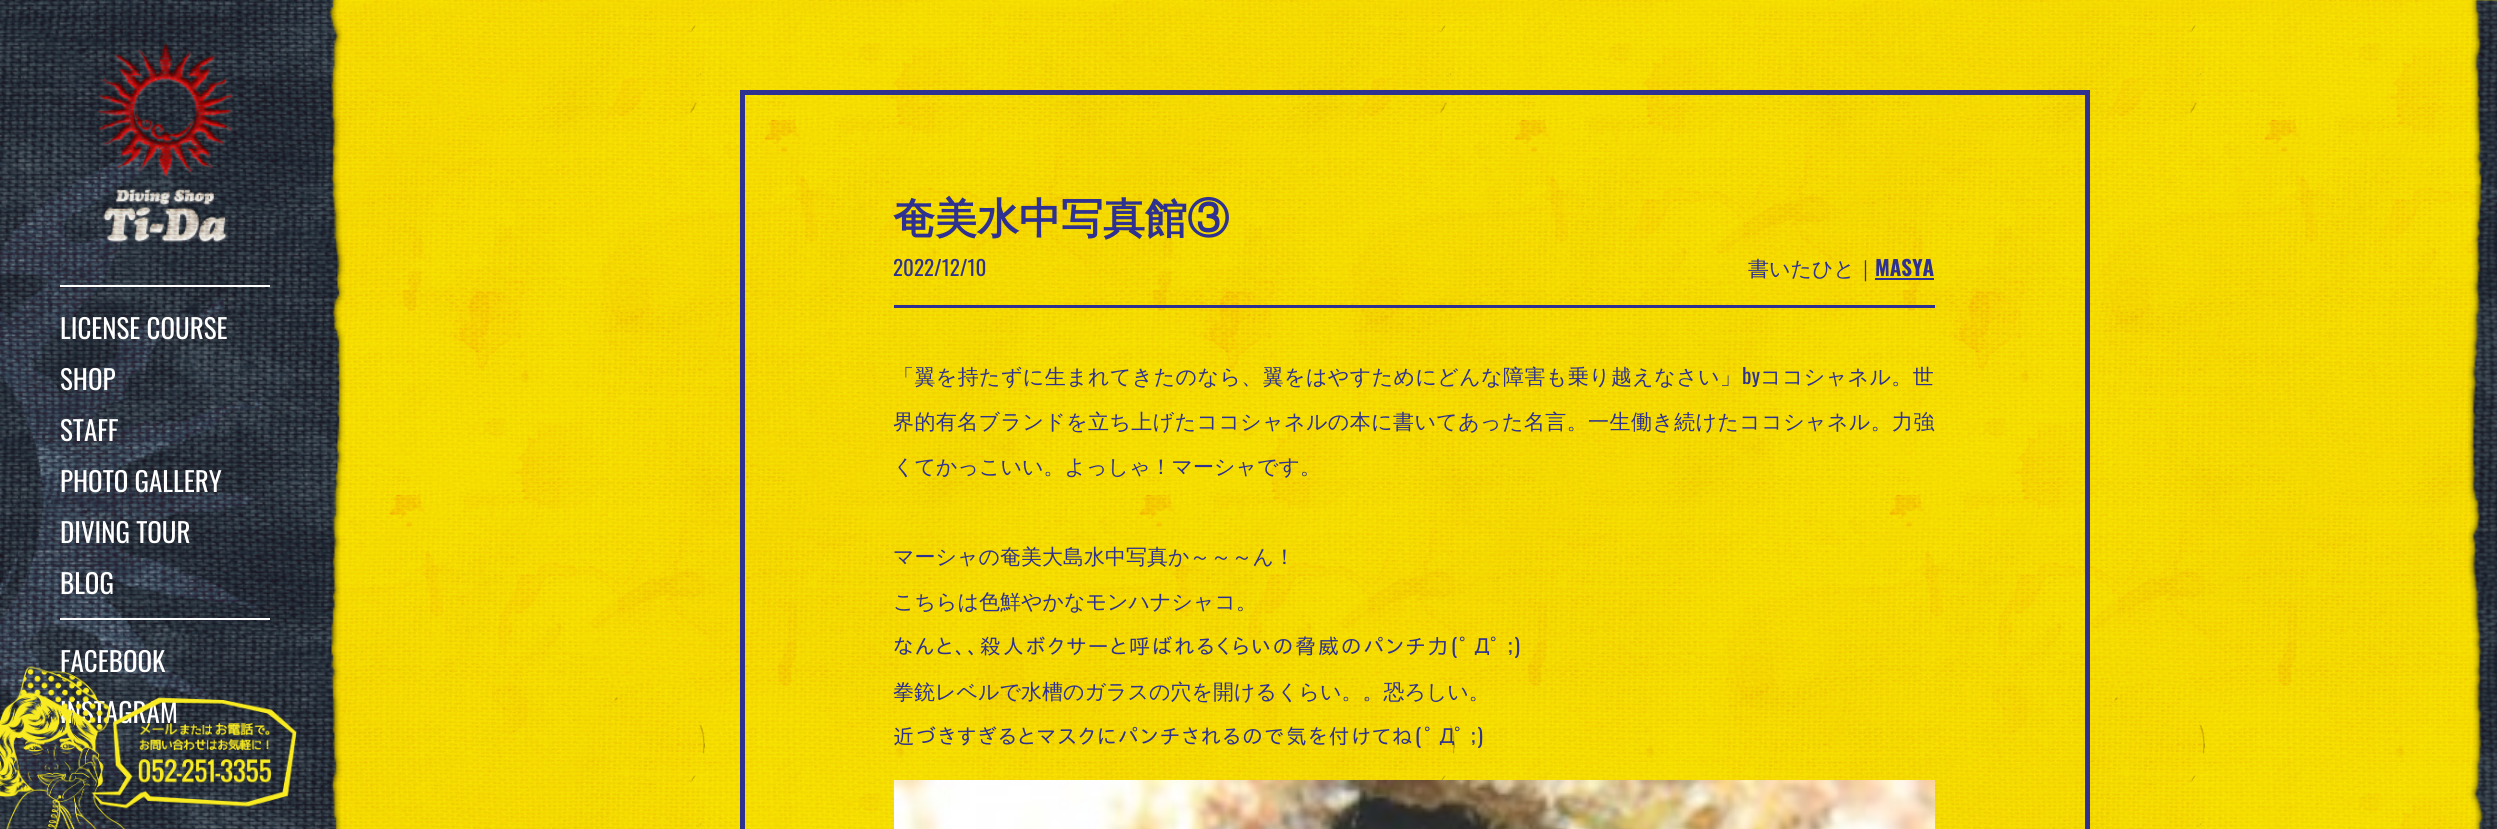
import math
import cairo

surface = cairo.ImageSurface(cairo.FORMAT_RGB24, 2497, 829)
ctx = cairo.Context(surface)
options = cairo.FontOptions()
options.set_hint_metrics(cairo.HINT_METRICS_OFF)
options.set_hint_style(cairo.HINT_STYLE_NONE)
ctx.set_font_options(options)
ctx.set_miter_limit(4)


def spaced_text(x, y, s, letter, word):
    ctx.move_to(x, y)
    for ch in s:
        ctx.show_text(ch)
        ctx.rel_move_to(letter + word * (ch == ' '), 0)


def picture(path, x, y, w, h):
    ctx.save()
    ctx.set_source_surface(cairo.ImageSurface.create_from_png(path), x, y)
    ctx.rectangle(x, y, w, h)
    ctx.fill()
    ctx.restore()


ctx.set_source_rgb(1, 1, 1)
ctx.paint()
picture("img1.png", 329, 0, 2168, 829)
picture("img5.png", 330, 0, 2167, 13)
picture("img2.png", 0, 0, 345, 829)
picture("img3.png", 96, 41, 138, 202)
ctx.set_source_rgb(1, 1, 1)
ctx.rectangle(60, 285, 210, 2)
ctx.fill()
ctx.select_font_face("Oswald")
ctx.set_font_size(27)
ctx.move_to(60, 339)
ctx.show_text("LICENSE COURSE")
ctx.move_to(60, 390)
ctx.show_text("SHOP")
ctx.move_to(60, 441)
ctx.show_text("STAFF")
ctx.move_to(60, 492)
ctx.show_text("PHOTO GALLERY")
ctx.move_to(60, 543)
ctx.show_text("DIVING TOUR")
ctx.move_to(60, 594)
ctx.show_text("BLOG")
ctx.rectangle(60, 618, 210, 2)
ctx.fill()
ctx.move_to(60, 672)
ctx.show_text("FACEBOOK")
ctx.move_to(60, 723)
ctx.show_text("INSTAGRAM")
picture("img4.png", 0, 666, 297, 163)
ctx.rectangle(742.5, 92.5, 1345, 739)
ctx.set_source_rgb(0.18, 0.192, 0.561)
ctx.set_line_width(5)
ctx.stroke()
ctx.select_font_face("WenQuanYi Zen Hei", cairo.FONT_SLANT_NORMAL, cairo.FONT_WEIGHT_BOLD)
ctx.set_font_size(42)
ctx.move_to(893, 233)
ctx.show_text("奄美水中写真館③")
ctx.rectangle(894, 305, 1041, 3)
ctx.fill()
ctx.select_font_face("Oswald")
ctx.set_font_size(21)
ctx.move_to(893, 276)
ctx.show_text("2022/12/10")
ctx.select_font_face("WenQuanYi Zen Hei Medium")
ctx.move_to(1748, 276)
ctx.show_text("書いたひと｜")
ctx.select_font_face("Oswald", cairo.FONT_SLANT_NORMAL, cairo.FONT_WEIGHT_BOLD)
ctx.move_to(1875, 276)
ctx.show_text("MASYA")
ctx.rectangle(1875, 278, 59, 2)
ctx.fill()
ctx.select_font_face("WenQuanYi Zen Hei Medium")
spaced_text(893, 384, "「翼を持たずに生まれてきたのなら、翼をはやすためにどんな障害も乗り越えなさい」", 0.4, 0)
ctx.select_font_face("Oswald")
spaced_text(1742, 384, "by", 0.4, 0)
ctx.select_font_face("WenQuanYi Zen Hei Medium")
spaced_text(1760, 384, "ココシャネル。世", 0.4, 0)
spaced_text(893, 429, "界的有名ブランドを立ち上げたココシャネルの本に書いてあった名言。一生働き続けたココシャネル。力強", 0.4, 0)
ctx.move_to(893, 474)
ctx.show_text("くてかっこいい。よっしゃ！マーシャです。")
ctx.move_to(893, 564)
ctx.show_text("マーシャの奄美大島水中写真か～～～ん！")
ctx.move_to(893, 609)
ctx.show_text("こちらは色鮮やかなモンハナシャコ。")
ctx.select_font_face("IPAPGothic")
spaced_text(893, 654, "なんと、、殺人ボクサーと呼ばれるくらいの脅威のパンチ力", 2, 0)
ctx.select_font_face("Oswald")
spaced_text(1451, 654, "(", 2, 0)
ctx.select_font_face("IPAPGothic")
spaced_text(1459, 654, "ﾟД", 2, 0)
spaced_text(1490, 654, "ﾟ", 2, 0)
ctx.select_font_face("Oswald")
spaced_text(1508, 654, ";)", 2, 0)
ctx.select_font_face("WenQuanYi Zen Hei Medium")
ctx.move_to(893, 699)
ctx.show_text("拳銃レベルで水槽のガラスの穴を開けるくらい。。恐ろしい。")
ctx.select_font_face("IPAPGothic")
spaced_text(893, 744, "近づきすぎるとマスクにパンチされるので気を付けてね", 1.9, 0)
ctx.select_font_face("Oswald")
spaced_text(1415, 744, "(", 1.9, 0)
ctx.select_font_face("IPAPGothic")
spaced_text(1424, 744, "ﾟД", 1.9, 0)
spaced_text(1454, 744, "ﾟ", 1.9, 0)
ctx.select_font_face("Oswald")
spaced_text(1471, 744, ";)", 1.9, 0)
picture("img6.png", 894, 780, 1041, 49)
picture("img7.png", 2468, 0, 29, 829)
surface.write_to_png("page.png")
